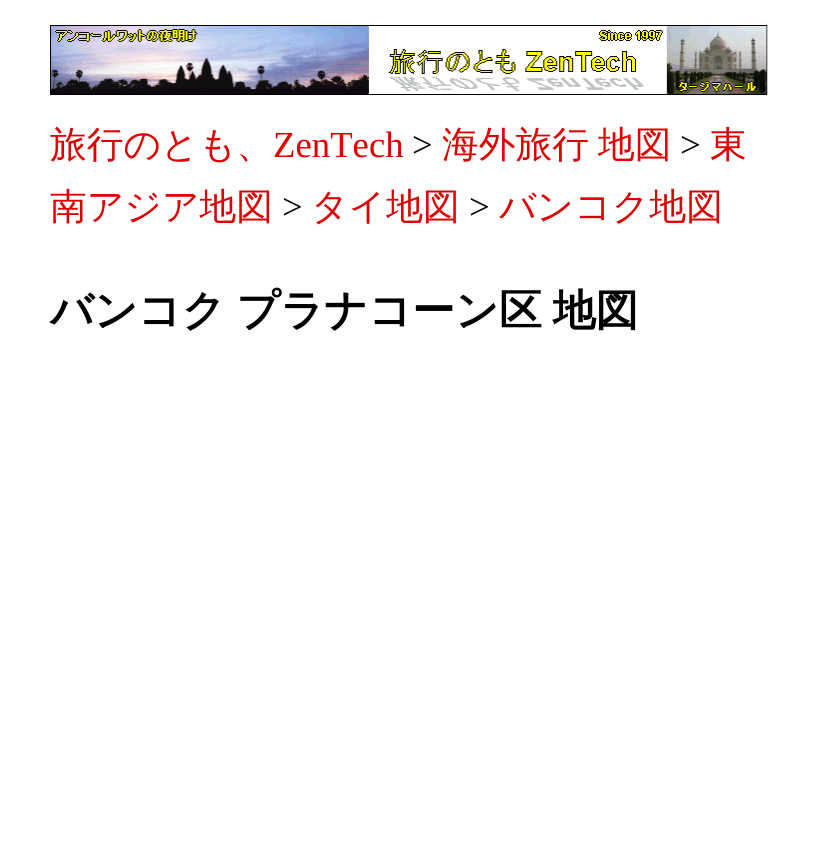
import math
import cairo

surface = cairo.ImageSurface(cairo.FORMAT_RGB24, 816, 864)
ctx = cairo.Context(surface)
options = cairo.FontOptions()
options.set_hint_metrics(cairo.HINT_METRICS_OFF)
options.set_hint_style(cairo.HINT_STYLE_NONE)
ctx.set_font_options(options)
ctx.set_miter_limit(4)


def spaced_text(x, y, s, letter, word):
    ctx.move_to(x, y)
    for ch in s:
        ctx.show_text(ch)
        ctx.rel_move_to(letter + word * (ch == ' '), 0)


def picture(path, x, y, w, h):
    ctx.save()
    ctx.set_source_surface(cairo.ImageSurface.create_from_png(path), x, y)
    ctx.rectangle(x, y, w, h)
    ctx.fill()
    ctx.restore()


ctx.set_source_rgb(1, 1, 1)
ctx.paint()
picture("img1.png", 50, 25, 718, 70)
ctx.select_font_face("WenQuanYi Zen Hei Medium")
ctx.set_font_size(36.75)
ctx.set_source_rgb(0.878, 0, 0)
ctx.move_to(50, 157)
ctx.show_text("旅行のとも、")
ctx.select_font_face("Liberation Serif")
ctx.move_to(273, 157)
ctx.show_text("ZenTech")
ctx.set_source_rgb(0, 0, 0)
ctx.move_to(412, 157)
ctx.show_text(">")
ctx.select_font_face("WenQuanYi Zen Hei Medium")
ctx.set_source_rgb(0.878, 0, 0)
spaced_text(442, 157, "海外旅行 地図", 0, -2)
ctx.select_font_face("Liberation Serif")
ctx.set_source_rgb(0, 0, 0)
ctx.move_to(680, 157)
ctx.show_text(">")
ctx.select_font_face("WenQuanYi Zen Hei Medium")
ctx.set_source_rgb(0.878, 0, 0)
ctx.move_to(710, 157)
ctx.show_text("東")
ctx.move_to(50, 219)
ctx.show_text("南アジア地図")
ctx.select_font_face("Liberation Serif")
ctx.set_source_rgb(0, 0, 0)
ctx.move_to(282, 219)
ctx.show_text(">")
ctx.select_font_face("WenQuanYi Zen Hei Medium")
ctx.set_source_rgb(0.878, 0, 0)
ctx.move_to(311, 219)
ctx.show_text("タイ地図")
ctx.select_font_face("Liberation Serif")
ctx.set_source_rgb(0, 0, 0)
ctx.move_to(469, 219)
ctx.show_text(">")
ctx.select_font_face("WenQuanYi Zen Hei Medium")
ctx.set_source_rgb(0.878, 0, 0)
ctx.move_to(499, 219)
ctx.show_text("バンコク地図")
ctx.select_font_face("WenQuanYi Zen Hei", cairo.FONT_SLANT_NORMAL, cairo.FONT_WEIGHT_BOLD)
ctx.set_font_size(42.9)
ctx.set_source_rgb(0, 0, 0)
spaced_text(50, 325, "バンコク プラナコーン区 地図", 0, -2)
surface.write_to_png("page.png")
